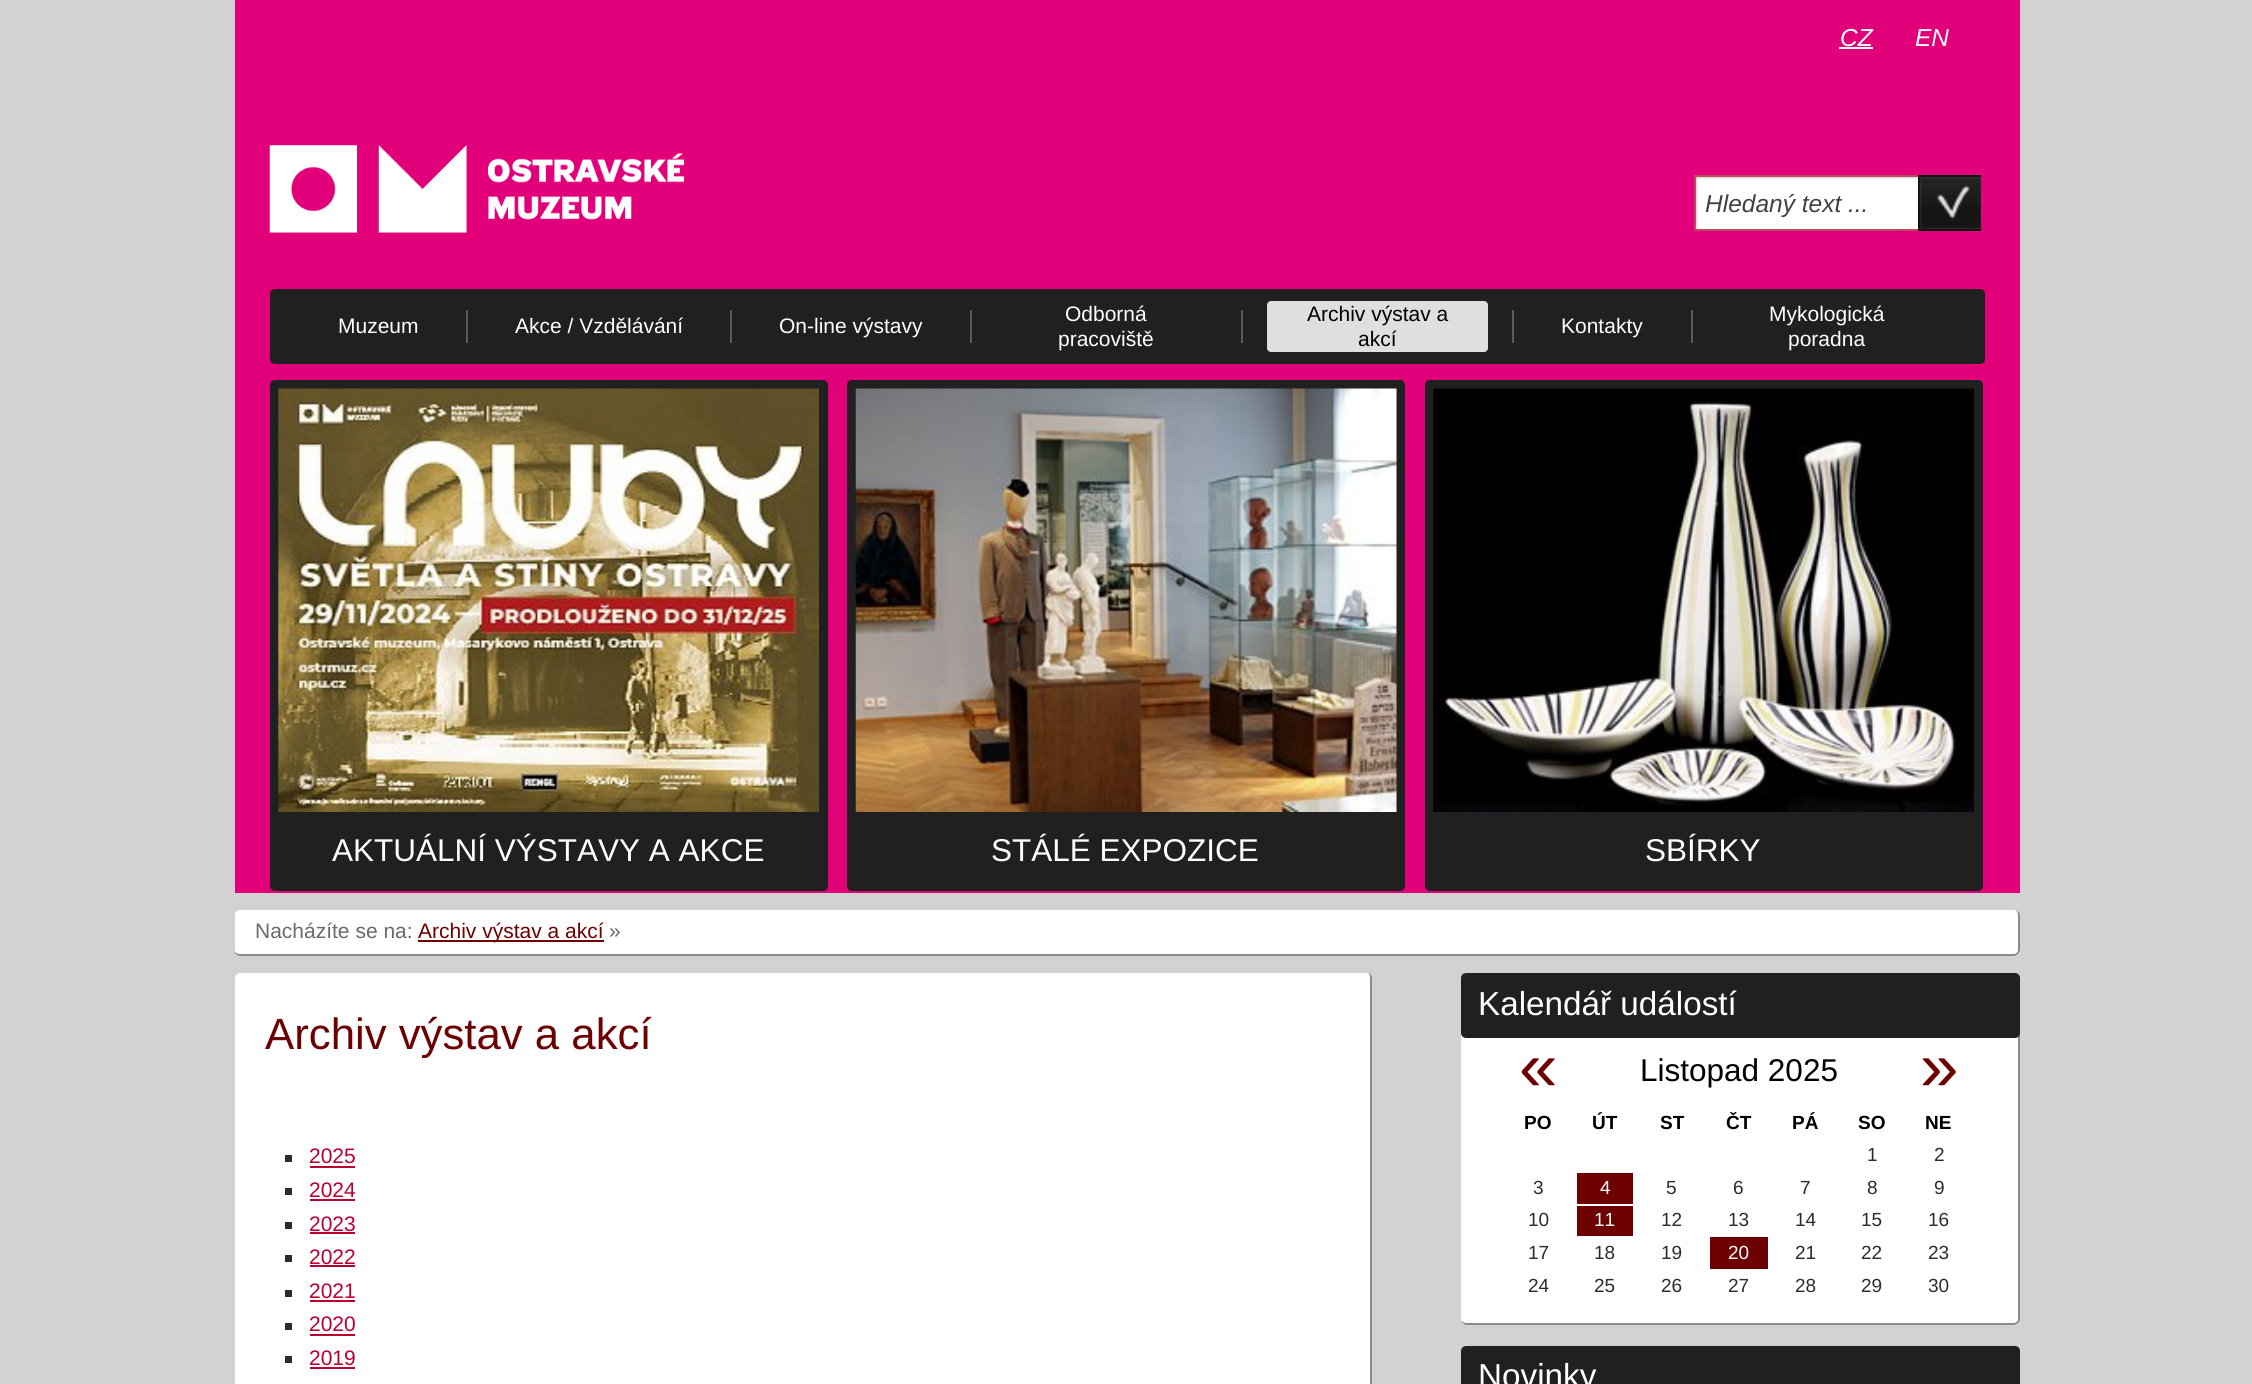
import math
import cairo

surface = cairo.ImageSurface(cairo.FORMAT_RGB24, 2252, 1384)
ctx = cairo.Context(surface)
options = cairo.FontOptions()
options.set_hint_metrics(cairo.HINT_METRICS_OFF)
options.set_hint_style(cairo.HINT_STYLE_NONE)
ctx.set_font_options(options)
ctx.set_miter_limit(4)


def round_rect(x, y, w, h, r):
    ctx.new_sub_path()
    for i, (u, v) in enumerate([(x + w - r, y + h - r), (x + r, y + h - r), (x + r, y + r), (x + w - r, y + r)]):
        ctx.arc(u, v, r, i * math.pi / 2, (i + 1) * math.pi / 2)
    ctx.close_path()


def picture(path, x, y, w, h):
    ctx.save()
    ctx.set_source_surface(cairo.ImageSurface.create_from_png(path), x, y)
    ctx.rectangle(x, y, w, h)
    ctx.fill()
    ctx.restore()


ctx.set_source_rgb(0.824, 0.824, 0.824)
ctx.paint()
ctx.set_source_rgb(0.882, 0, 0.478)
ctx.rectangle(235, 0, 1785, 893)
ctx.fill()
ctx.select_font_face("Liberation Sans", cairo.FONT_SLANT_ITALIC)
ctx.set_font_size(24.5)
ctx.set_source_rgb(1, 1, 1)
ctx.move_to(1840, 46)
ctx.show_text("CZ")
ctx.rectangle(1839, 47, 34, 2)
ctx.fill()
ctx.move_to(1915, 46)
ctx.show_text("EN")
picture("img1.png", 269, 145, 416, 88)
picture("img2.png", 1696, 177, 222, 52)
ctx.set_source_rgb(0.745, 0.286, 0.373)
ctx.rectangle(1694, 175, 224, 2)
ctx.fill()
ctx.rectangle(1694, 229, 224, 2)
ctx.fill()
ctx.rectangle(1694, 175, 2, 56)
ctx.fill()
ctx.set_source_rgb(0.255, 0.255, 0.255)
ctx.move_to(1705, 212)
ctx.show_text("Hledaný text ...")
picture("img3.png", 1918, 175, 63, 56)
ctx.set_source_rgb(0.125, 0.125, 0.125)
round_rect(270, 289, 1715, 75, 5)
ctx.fill()
ctx.select_font_face("Liberation Sans")
ctx.set_font_size(21)
ctx.set_source_rgb(1, 1, 1)
ctx.move_to(338, 333)
ctx.show_text("Muzeum")
ctx.set_source_rgb(0.353, 0.353, 0.353)
ctx.rectangle(466, 310, 2, 33)
ctx.fill()
ctx.set_source_rgb(1, 1, 1)
ctx.move_to(515, 333)
ctx.show_text("Akce / Vzdělávání")
ctx.set_source_rgb(0.353, 0.353, 0.353)
ctx.rectangle(730, 310, 2, 33)
ctx.fill()
ctx.set_source_rgb(1, 1, 1)
ctx.move_to(779, 333)
ctx.show_text("On-line výstavy")
ctx.set_source_rgb(0.353, 0.353, 0.353)
ctx.rectangle(970, 310, 2, 33)
ctx.fill()
ctx.set_source_rgb(1, 1, 1)
ctx.move_to(1065, 321)
ctx.show_text("Odborná")
ctx.move_to(1058, 346)
ctx.show_text("pracoviště")
ctx.set_source_rgb(0.353, 0.353, 0.353)
ctx.rectangle(1241, 310, 2, 33)
ctx.fill()
ctx.set_source_rgb(0.875, 0.875, 0.875)
round_rect(1267, 301, 221, 51, 4)
ctx.fill()
ctx.set_source_rgb(0, 0, 0)
ctx.move_to(1307, 321)
ctx.show_text("Archiv výstav a")
ctx.move_to(1358, 346)
ctx.show_text("akcí")
ctx.set_source_rgb(0.353, 0.353, 0.353)
ctx.rectangle(1512, 310, 2, 33)
ctx.fill()
ctx.set_source_rgb(1, 1, 1)
ctx.move_to(1561, 333)
ctx.show_text("Kontakty")
ctx.set_source_rgb(0.353, 0.353, 0.353)
ctx.rectangle(1691, 310, 2, 33)
ctx.fill()
ctx.set_source_rgb(1, 1, 1)
ctx.move_to(1769, 321)
ctx.show_text("Mykologická")
ctx.move_to(1788, 346)
ctx.show_text("poradna")
ctx.set_source_rgb(0.125, 0.125, 0.125)
round_rect(270, 380, 558, 511, 5)
ctx.fill()
picture("img4.png", 278, 388, 541, 424)
ctx.set_font_size(31.5)
ctx.set_source_rgb(1, 1, 1)
ctx.move_to(332, 861)
ctx.show_text("AKTUÁLNÍ VÝSTAVY A AKCE")
ctx.set_source_rgb(0.125, 0.125, 0.125)
round_rect(847, 380, 558, 511, 5)
ctx.fill()
picture("img5.png", 855, 388, 542, 424)
ctx.set_source_rgb(1, 1, 1)
ctx.move_to(991, 861)
ctx.show_text("STÁLÉ EXPOZICE")
ctx.set_source_rgb(0.125, 0.125, 0.125)
round_rect(1425, 380, 558, 511, 5)
ctx.fill()
picture("img6.png", 1433, 388, 541, 424)
ctx.set_source_rgb(1, 1, 1)
ctx.move_to(1645, 861)
ctx.show_text("SBÍRKY")
round_rect(235, 910, 1785, 46, 5)
ctx.fill()
ctx.set_source_rgb(0.545, 0.545, 0.545)
ctx.set_fill_rule(cairo.FILL_RULE_EVEN_ODD)
ctx.new_path()
ctx.move_to(240, 910)
ctx.line_to(2014, 910)
ctx.curve_to(2017, 910, 2020, 912, 2020, 915)
ctx.line_to(2020, 950)
ctx.curve_to(2020, 953, 2017, 956, 2014, 956)
ctx.line_to(240, 956)
ctx.curve_to(237, 956, 234, 953, 234, 950)
ctx.line_to(234, 915)
ctx.curve_to(234, 912, 237, 910, 240, 910)
ctx.close_path()
ctx.move_to(240, 910)
ctx.line_to(2014, 910)
ctx.curve_to(2016, 910, 2018, 912, 2018, 915)
ctx.line_to(2018, 950)
ctx.curve_to(2018, 952, 2016, 954, 2014, 954)
ctx.line_to(240, 954)
ctx.curve_to(237, 954, 234, 952, 234, 950)
ctx.line_to(234, 915)
ctx.curve_to(234, 912, 237, 910, 240, 910)
ctx.close_path()
ctx.fill()
ctx.set_font_size(21)
ctx.set_source_rgb(0.416, 0.416, 0.416)
ctx.move_to(255, 938)
ctx.show_text("Nacházíte se na:")
ctx.set_source_rgb(0.427, 0, 0)
ctx.rectangle(418, 940, 186, 2)
ctx.fill()
ctx.move_to(418, 938)
ctx.show_text("Archiv výstav a akcí")
ctx.set_source_rgb(0.416, 0.416, 0.416)
ctx.move_to(609, 938)
ctx.show_text("»")
ctx.set_source_rgb(1, 1, 1)
round_rect(235, 973, 1137, 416, 5)
ctx.fill()
ctx.set_source_rgb(0.545, 0.545, 0.545)
ctx.new_path()
ctx.move_to(240, 973)
ctx.line_to(1367, 973)
ctx.curve_to(1370, 973, 1372, 975, 1372, 978)
ctx.line_to(1372, 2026)
ctx.curve_to(1372, 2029, 1370, 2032, 1367, 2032)
ctx.line_to(240, 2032)
ctx.curve_to(237, 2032, 234, 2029, 234, 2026)
ctx.line_to(234, 978)
ctx.curve_to(234, 975, 237, 973, 240, 973)
ctx.close_path()
ctx.move_to(240, 973)
ctx.line_to(1367, 973)
ctx.curve_to(1369, 973, 1370, 975, 1370, 978)
ctx.line_to(1370, 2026)
ctx.curve_to(1370, 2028, 1369, 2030, 1367, 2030)
ctx.line_to(240, 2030)
ctx.curve_to(237, 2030, 234, 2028, 234, 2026)
ctx.line_to(234, 978)
ctx.curve_to(234, 975, 237, 973, 240, 973)
ctx.close_path()
ctx.fill()
ctx.set_font_size(43.75)
ctx.set_source_rgb(0.427, 0, 0)
ctx.move_to(265, 1049)
ctx.show_text("Archiv výstav a akcí")
ctx.set_source_rgb(0.173, 0.173, 0.173)
ctx.rectangle(285, 1155, 7, 7)
ctx.fill()
ctx.set_font_size(21)
ctx.set_source_rgb(0.725, 0, 0.188)
ctx.move_to(309, 1163)
ctx.show_text("2025")
ctx.rectangle(310, 1166, 45, 2)
ctx.fill()
ctx.set_source_rgb(0.173, 0.173, 0.173)
ctx.rectangle(285, 1188, 7, 7)
ctx.fill()
ctx.set_source_rgb(0.725, 0, 0.188)
ctx.move_to(309, 1197)
ctx.show_text("2024")
ctx.rectangle(310, 1199, 45, 2)
ctx.fill()
ctx.set_source_rgb(0.173, 0.173, 0.173)
ctx.rectangle(285, 1222, 7, 7)
ctx.fill()
ctx.set_source_rgb(0.725, 0, 0.188)
ctx.move_to(309, 1231)
ctx.show_text("2023")
ctx.rectangle(310, 1232, 45, 2)
ctx.fill()
ctx.set_source_rgb(0.173, 0.173, 0.173)
ctx.rectangle(285, 1255, 7, 7)
ctx.fill()
ctx.set_source_rgb(0.725, 0, 0.188)
ctx.move_to(309, 1264)
ctx.show_text("2022")
ctx.rectangle(310, 1265, 45, 2)
ctx.fill()
ctx.set_source_rgb(0.173, 0.173, 0.173)
ctx.rectangle(285, 1290, 7, 7)
ctx.fill()
ctx.set_source_rgb(0.725, 0, 0.188)
ctx.move_to(309, 1298)
ctx.show_text("2021")
ctx.rectangle(310, 1300, 45, 2)
ctx.fill()
ctx.set_source_rgb(0.173, 0.173, 0.173)
ctx.rectangle(285, 1323, 7, 7)
ctx.fill()
ctx.set_source_rgb(0.725, 0, 0.188)
ctx.move_to(309, 1331)
ctx.show_text("2020")
ctx.rectangle(310, 1334, 45, 2)
ctx.fill()
ctx.set_source_rgb(0.173, 0.173, 0.173)
ctx.rectangle(285, 1356, 7, 7)
ctx.fill()
ctx.set_source_rgb(0.725, 0, 0.188)
ctx.move_to(309, 1365)
ctx.show_text("2019")
ctx.rectangle(310, 1367, 45, 2)
ctx.fill()
ctx.set_source_rgb(1, 1, 1)
round_rect(1461, 973, 559, 352, 5)
ctx.fill()
ctx.set_source_rgb(0.545, 0.545, 0.545)
ctx.new_path()
ctx.move_to(1466, 973)
ctx.line_to(2014, 973)
ctx.curve_to(2017, 973, 2020, 975, 2020, 978)
ctx.line_to(2020, 1320)
ctx.curve_to(2020, 1322, 2017, 1325, 2014, 1325)
ctx.line_to(1466, 1325)
ctx.curve_to(1464, 1325, 1461, 1322, 1461, 1320)
ctx.line_to(1461, 978)
ctx.curve_to(1461, 975, 1464, 973, 1466, 973)
ctx.close_path()
ctx.move_to(1466, 973)
ctx.line_to(2014, 973)
ctx.curve_to(2016, 973, 2018, 975, 2018, 978)
ctx.line_to(2018, 1320)
ctx.curve_to(2018, 1321, 2016, 1323, 2014, 1323)
ctx.line_to(1466, 1323)
ctx.curve_to(1464, 1323, 1461, 1321, 1461, 1320)
ctx.line_to(1461, 978)
ctx.curve_to(1461, 975, 1464, 973, 1466, 973)
ctx.close_path()
ctx.fill()
ctx.set_source_rgb(0.125, 0.125, 0.125)
round_rect(1461, 973, 559, 65, 5)
ctx.fill()
ctx.set_font_size(33.25)
ctx.set_source_rgb(1, 1, 1)
ctx.move_to(1478, 1015)
ctx.show_text("Kalendář událostí")
ctx.set_font_size(69)
ctx.set_source_rgb(0.427, 0, 0)
ctx.move_to(1519, 1090)
ctx.show_text("«")
ctx.set_font_size(31.5)
ctx.set_source_rgb(0, 0, 0)
ctx.move_to(1640, 1081)
ctx.show_text("Listopad 2025")
ctx.set_font_size(69)
ctx.set_source_rgb(0.427, 0, 0)
ctx.move_to(1920, 1090)
ctx.show_text("»")
ctx.select_font_face("Liberation Sans", cairo.FONT_SLANT_NORMAL, cairo.FONT_WEIGHT_BOLD)
ctx.set_font_size(19)
ctx.set_source_rgb(0, 0, 0)
ctx.move_to(1524, 1129)
ctx.show_text("PO")
ctx.move_to(1592, 1129)
ctx.show_text("ÚT")
ctx.move_to(1660, 1129)
ctx.show_text("ST")
ctx.move_to(1726, 1129)
ctx.show_text("ČT")
ctx.move_to(1792, 1129)
ctx.show_text("PÁ")
ctx.move_to(1858, 1129)
ctx.show_text("SO")
ctx.move_to(1925, 1129)
ctx.show_text("NE")
ctx.select_font_face("Liberation Sans")
ctx.set_source_rgb(0.173, 0.173, 0.173)
ctx.move_to(1867, 1161)
ctx.show_text("1")
ctx.move_to(1934, 1161)
ctx.show_text("2")
ctx.move_to(1533, 1194)
ctx.show_text("3")
ctx.set_source_rgb(0.427, 0, 0)
ctx.rectangle(1577, 1173, 56, 31)
ctx.fill()
ctx.set_source_rgb(1, 1, 1)
ctx.move_to(1600, 1194)
ctx.show_text("4")
ctx.set_source_rgb(0.173, 0.173, 0.173)
ctx.move_to(1666, 1194)
ctx.show_text("5")
ctx.move_to(1733, 1194)
ctx.show_text("6")
ctx.move_to(1800, 1194)
ctx.show_text("7")
ctx.move_to(1867, 1194)
ctx.show_text("8")
ctx.move_to(1934, 1194)
ctx.show_text("9")
ctx.move_to(1528, 1226)
ctx.show_text("10")
ctx.set_source_rgb(0.427, 0, 0)
ctx.rectangle(1577, 1206, 56, 30)
ctx.fill()
ctx.set_source_rgb(1, 1, 1)
ctx.move_to(1594, 1226)
ctx.show_text("11")
ctx.set_source_rgb(0.173, 0.173, 0.173)
ctx.move_to(1661, 1226)
ctx.show_text("12")
ctx.move_to(1728, 1226)
ctx.show_text("13")
ctx.move_to(1795, 1226)
ctx.show_text("14")
ctx.move_to(1861, 1226)
ctx.show_text("15")
ctx.move_to(1928, 1226)
ctx.show_text("16")
ctx.move_to(1528, 1259)
ctx.show_text("17")
ctx.move_to(1594, 1259)
ctx.show_text("18")
ctx.move_to(1661, 1259)
ctx.show_text("19")
ctx.set_source_rgb(0.427, 0, 0)
ctx.rectangle(1710, 1237, 58, 32)
ctx.fill()
ctx.set_source_rgb(1, 1, 1)
ctx.move_to(1728, 1259)
ctx.show_text("20")
ctx.set_source_rgb(0.173, 0.173, 0.173)
ctx.move_to(1795, 1259)
ctx.show_text("21")
ctx.move_to(1861, 1259)
ctx.show_text("22")
ctx.move_to(1928, 1259)
ctx.show_text("23")
ctx.move_to(1528, 1292)
ctx.show_text("24")
ctx.move_to(1594, 1292)
ctx.show_text("25")
ctx.move_to(1661, 1292)
ctx.show_text("26")
ctx.move_to(1728, 1292)
ctx.show_text("27")
ctx.move_to(1795, 1292)
ctx.show_text("28")
ctx.move_to(1861, 1292)
ctx.show_text("29")
ctx.move_to(1928, 1292)
ctx.show_text("30")
ctx.set_source_rgb(0.125, 0.125, 0.125)
round_rect(1461, 1346, 559, 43, 5)
ctx.fill()
ctx.set_font_size(33.25)
ctx.set_source_rgb(1, 1, 1)
ctx.move_to(1478, 1387)
ctx.show_text("Novinky")
surface.write_to_png("page.png")
